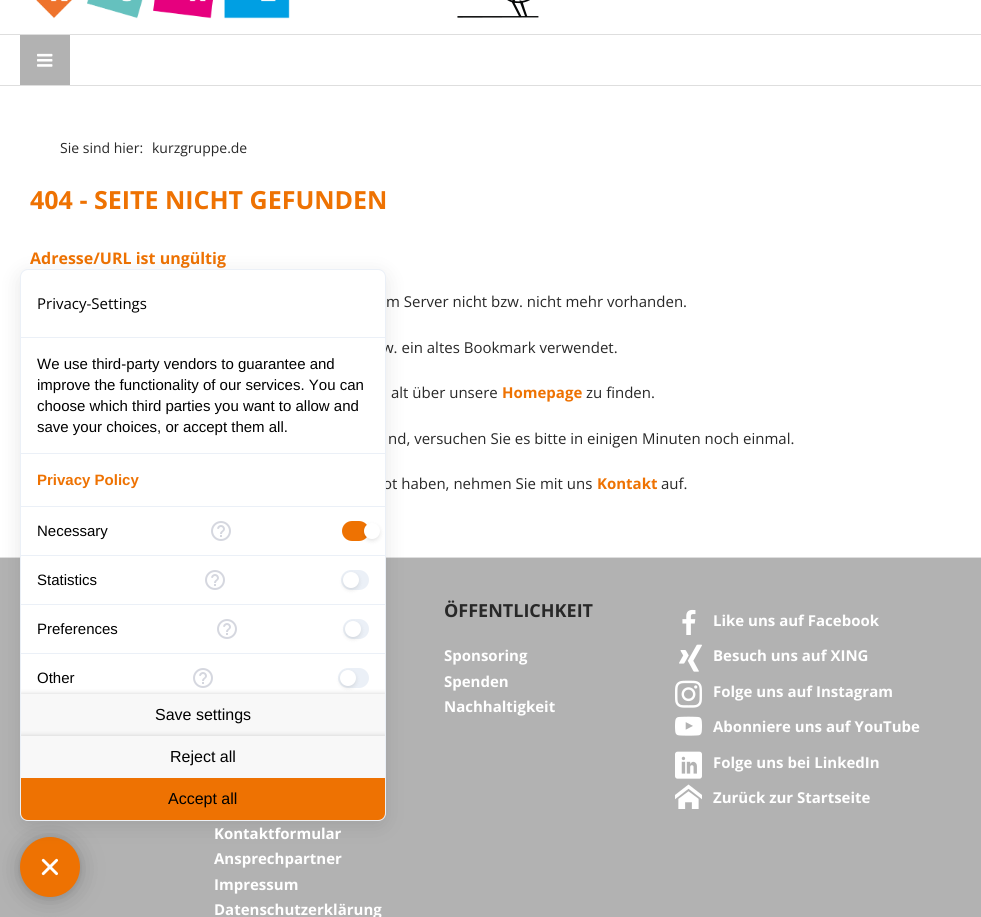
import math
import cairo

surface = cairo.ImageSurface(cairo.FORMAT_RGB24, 981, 917)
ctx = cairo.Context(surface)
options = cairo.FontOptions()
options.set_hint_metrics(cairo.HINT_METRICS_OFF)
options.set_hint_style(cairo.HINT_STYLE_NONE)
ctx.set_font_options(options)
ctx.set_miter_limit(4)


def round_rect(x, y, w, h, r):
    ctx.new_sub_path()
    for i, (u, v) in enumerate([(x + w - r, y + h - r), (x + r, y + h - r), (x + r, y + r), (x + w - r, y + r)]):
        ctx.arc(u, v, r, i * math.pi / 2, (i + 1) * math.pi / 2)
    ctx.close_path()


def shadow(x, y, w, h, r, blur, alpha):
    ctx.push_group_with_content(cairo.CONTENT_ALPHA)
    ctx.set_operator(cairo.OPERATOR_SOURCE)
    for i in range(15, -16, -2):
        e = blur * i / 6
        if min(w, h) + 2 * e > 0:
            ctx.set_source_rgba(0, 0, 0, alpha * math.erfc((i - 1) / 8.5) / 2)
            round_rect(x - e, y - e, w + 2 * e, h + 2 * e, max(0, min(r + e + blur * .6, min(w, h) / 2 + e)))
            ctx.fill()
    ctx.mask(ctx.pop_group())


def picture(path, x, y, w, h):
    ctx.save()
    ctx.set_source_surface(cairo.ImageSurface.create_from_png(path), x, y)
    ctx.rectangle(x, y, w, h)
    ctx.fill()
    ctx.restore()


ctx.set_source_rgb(1, 1, 1)
ctx.paint()
ctx.set_source_rgb(0.871, 0.871, 0.871)
ctx.rectangle(0, 85, 981, 1)
ctx.fill()
picture("img1.png", 36, 0, 254, 19)
picture("img2.png", 457, 0, 82, 18)
ctx.rectangle(0, 34, 981, 1)
ctx.fill()
ctx.set_source_rgb(0.698, 0.698, 0.698)
ctx.rectangle(20, 35, 50, 50)
ctx.fill()
picture("img3.png", 37, 53, 16, 14)
ctx.select_font_face("Open Sans")
ctx.set_font_size(14)
ctx.set_source_rgb(0.157, 0.157, 0.157)
ctx.move_to(60, 153)
ctx.show_text("Sie sind hier:")
ctx.move_to(152, 153)
ctx.show_text("kurzgruppe.de")
ctx.select_font_face("Open Sans", cairo.FONT_SLANT_NORMAL, cairo.FONT_WEIGHT_BOLD)
ctx.set_font_size(25)
ctx.set_source_rgb(0.933, 0.447, 0.008)
ctx.move_to(30, 209)
ctx.show_text("404 - SEITE NICHT GEFUNDEN")
ctx.set_font_size(16)
ctx.move_to(30, 264)
ctx.show_text("Adresse/URL ist ungültig")
ctx.select_font_face("Open Sans")
ctx.set_font_size(15)
ctx.set_source_rgb(0.157, 0.157, 0.157)
ctx.move_to(386, 307)
ctx.show_text("m Server nicht bzw. nicht mehr vorhanden.")
ctx.move_to(382, 353)
ctx.show_text("w. ein altes Bookmark verwendet.")
ctx.move_to(391, 398)
ctx.show_text("alt über unsere")
ctx.select_font_face("Open Sans", cairo.FONT_SLANT_NORMAL, cairo.FONT_WEIGHT_BOLD)
ctx.set_source_rgb(0.933, 0.447, 0.008)
ctx.move_to(502, 398)
ctx.show_text("Homepage")
ctx.select_font_face("Open Sans")
ctx.set_source_rgb(0.157, 0.157, 0.157)
ctx.move_to(586, 398)
ctx.show_text("zu finden.")
ctx.move_to(388, 444)
ctx.show_text("nd, versuchen Sie es bitte in einigen Minuten noch einmal.")
ctx.move_to(383, 489)
ctx.show_text("ot haben, nehmen Sie mit uns")
ctx.select_font_face("Open Sans", cairo.FONT_SLANT_NORMAL, cairo.FONT_WEIGHT_BOLD)
ctx.set_source_rgb(0.933, 0.447, 0.008)
ctx.move_to(597, 489)
ctx.show_text("Kontakt")
ctx.select_font_face("Open Sans")
ctx.set_source_rgb(0.157, 0.157, 0.157)
ctx.move_to(661, 489)
ctx.show_text("auf.")
ctx.set_source_rgb(0.698, 0.698, 0.698)
ctx.rectangle(0, 558, 981, 359)
ctx.fill()
ctx.set_source_rgb(0, 0, 0)
shadow(20, 839, 60, 60, 30, 12, 0.2)
shadow(20, 838, 60, 60, 30, 3, 0.1)
ctx.set_source_rgb(0.933, 0.447, 0.008)
ctx.arc(50, 867, 30, 0, 2 * math.pi)
ctx.fill()
ctx.set_source_rgb(0.871, 0.871, 0.871)
ctx.rectangle(0, 557, 981, 1)
ctx.fill()
ctx.set_source_rgb(0, 0, 0)
shadow(20, 274, 366, 552, 8, 10, 0.1)
ctx.set_source_rgb(1, 1, 1)
round_rect(20.5, 269.5, 365, 551, 7.5)
ctx.fill_preserve()
ctx.set_source_rgb(0.918, 0.941, 0.965)
ctx.set_line_width(1)
ctx.stroke()
ctx.set_source_rgb(0, 0, 0)
ctx.move_to(37, 309)
ctx.show_text("Privacy-Settings")
ctx.set_source_rgb(0.918, 0.941, 0.965)
ctx.rectangle(21, 337, 364, 1)
ctx.fill()
ctx.select_font_face("Liberation Sans")
ctx.set_source_rgb(0, 0, 0)
ctx.move_to(37, 369)
ctx.show_text("We use third-party vendors to guarantee and")
ctx.move_to(37, 390)
ctx.show_text("improve the functionality of our services. You can")
ctx.move_to(37, 411)
ctx.show_text("choose which third parties you want to allow and")
ctx.move_to(37, 432)
ctx.show_text("save your choices, or accept them all.")
ctx.set_source_rgb(0.918, 0.941, 0.965)
ctx.rectangle(21, 453, 364, 1)
ctx.fill()
ctx.select_font_face("Liberation Sans", cairo.FONT_SLANT_NORMAL, cairo.FONT_WEIGHT_BOLD)
ctx.set_source_rgb(0.933, 0.447, 0.008)
ctx.move_to(37, 485)
ctx.show_text("Privacy Policy")
ctx.set_source_rgb(0.918, 0.941, 0.965)
ctx.rectangle(21, 506, 364, 1)
ctx.fill()
ctx.select_font_face("Liberation Sans")
ctx.set_source_rgb(0, 0, 0)
ctx.move_to(37, 536)
ctx.show_text("Necessary")
picture("img4.png", 211, 521, 20, 20)
ctx.set_source_rgb(0.933, 0.447, 0.008)
round_rect(342, 521, 27, 20, 10)
ctx.fill()
ctx.set_source_rgb(0, 0, 0)
shadow(364, 525, 16, 16, 8, 2, 0.1)
ctx.set_source_rgb(1, 1, 1)
ctx.arc(372, 531, 8, 0, 2 * math.pi)
ctx.fill()
ctx.set_source_rgb(0.918, 0.941, 0.965)
ctx.rectangle(21, 555, 364, 1)
ctx.fill()
ctx.set_source_rgb(0, 0, 0)
ctx.move_to(37, 585)
ctx.show_text("Statistics")
picture("img4.png", 205, 570, 20, 20)
ctx.set_source_rgb(0.918, 0.941, 0.965)
round_rect(341, 570, 28, 20, 10)
ctx.fill()
ctx.set_source_rgb(0, 0, 0)
shadow(343, 574, 16, 16, 8, 2, 0.1)
ctx.set_source_rgb(1, 1, 1)
ctx.arc(351, 580, 8, 0, 2 * math.pi)
ctx.fill()
ctx.set_source_rgb(0.918, 0.941, 0.965)
ctx.rectangle(21, 604, 364, 1)
ctx.fill()
ctx.set_source_rgb(0, 0, 0)
ctx.move_to(37, 634)
ctx.show_text("Preferences")
picture("img4.png", 217, 619, 20, 20)
ctx.set_source_rgb(0.918, 0.941, 0.965)
round_rect(343, 619, 26, 20, 10)
ctx.fill()
ctx.set_source_rgb(0, 0, 0)
shadow(345, 623, 16, 16, 8, 2, 0.1)
ctx.set_source_rgb(1, 1, 1)
ctx.arc(353, 629, 8, 0, 2 * math.pi)
ctx.fill()
ctx.set_source_rgb(0.918, 0.941, 0.965)
ctx.rectangle(21, 653, 364, 1)
ctx.fill()
ctx.set_source_rgb(0, 0, 0)
ctx.move_to(37, 683)
ctx.show_text("Other")
picture("img4.png", 193, 668, 20, 20)
ctx.set_source_rgb(0.918, 0.941, 0.965)
round_rect(338, 668, 31, 20, 10)
ctx.fill()
ctx.set_source_rgb(0, 0, 0)
shadow(340, 672, 16, 16, 8, 2, 0.1)
ctx.set_source_rgb(1, 1, 1)
ctx.arc(348, 678, 8, 0, 2 * math.pi)
ctx.fill()
ctx.save()
round_rect(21, 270, 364, 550, 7)
ctx.clip()
ctx.set_source_rgb(0.125, 0.129, 0.141)
shadow(21, 695, 364, 42, 0, 3, 0.28)
ctx.restore()
ctx.set_source_rgb(0.969, 0.969, 0.969)
ctx.rectangle(21, 694, 364, 42)
ctx.fill()
ctx.set_font_size(16)
ctx.set_source_rgb(0, 0, 0)
ctx.move_to(155, 720)
ctx.show_text("Save settings")
ctx.save()
round_rect(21, 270, 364, 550, 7)
ctx.clip()
ctx.set_source_rgb(0.125, 0.129, 0.141)
shadow(21, 737, 364, 42, 0, 3, 0.28)
ctx.restore()
ctx.set_source_rgb(0.969, 0.969, 0.969)
ctx.rectangle(21, 736, 364, 42)
ctx.fill()
ctx.set_source_rgb(0, 0, 0)
ctx.move_to(170, 762)
ctx.show_text("Reject all")
ctx.set_source_rgb(0.933, 0.447, 0.008)
ctx.new_path()
ctx.move_to(21, 778)
ctx.line_to(385, 778)
ctx.line_to(385, 813)
ctx.curve_to(385, 817, 382, 820, 378, 820)
ctx.line_to(28, 820)
ctx.curve_to(24, 820, 21, 817, 21, 813)
ctx.close_path()
ctx.fill()
ctx.set_source_rgb(0, 0, 0)
ctx.move_to(168, 804)
ctx.show_text("Accept all")
picture("img5.png", 41, 858, 17, 18)
ctx.select_font_face("Open Sans", cairo.FONT_SLANT_NORMAL, cairo.FONT_WEIGHT_BOLD)
ctx.set_font_size(18)
ctx.set_source_rgb(0.157, 0.157, 0.157)
ctx.move_to(444, 617)
ctx.show_text("ÖFFENTLICHKEIT")
ctx.set_font_size(15)
ctx.set_source_rgb(1, 1, 1)
ctx.move_to(444, 661)
ctx.show_text("Sponsoring")
ctx.move_to(444, 687)
ctx.show_text("Spenden")
ctx.move_to(444, 712)
ctx.show_text("Nachhaltigkeit")
ctx.move_to(214, 839)
ctx.show_text("Kontaktformular")
ctx.move_to(214, 864)
ctx.show_text("Ansprechpartner")
ctx.move_to(214, 890)
ctx.show_text("Impressum")
ctx.move_to(214, 915)
ctx.show_text("Datenschutzerklärung")
picture("img6.png", 682, 609, 14, 26)
ctx.move_to(713, 626)
ctx.show_text("Like uns auf Facebook")
picture("img7.png", 679, 644, 23, 28)
ctx.move_to(713, 661)
ctx.show_text("Besuch uns auf XING")
picture("img8.png", 675, 680, 27, 28)
ctx.move_to(713, 697)
ctx.show_text("Folge uns auf Instagram")
picture("img9.png", 675, 716, 27, 20)
ctx.move_to(713, 732)
ctx.show_text("Abonniere uns auf YouTube")
picture("img10.png", 675, 751, 27, 28)
ctx.move_to(713, 768)
ctx.show_text("Folge uns bei LinkedIn")
picture("img11.png", 675, 784, 27, 25)
ctx.move_to(713, 803)
ctx.show_text("Zurück zur Startseite")
surface.write_to_png("page.png")
